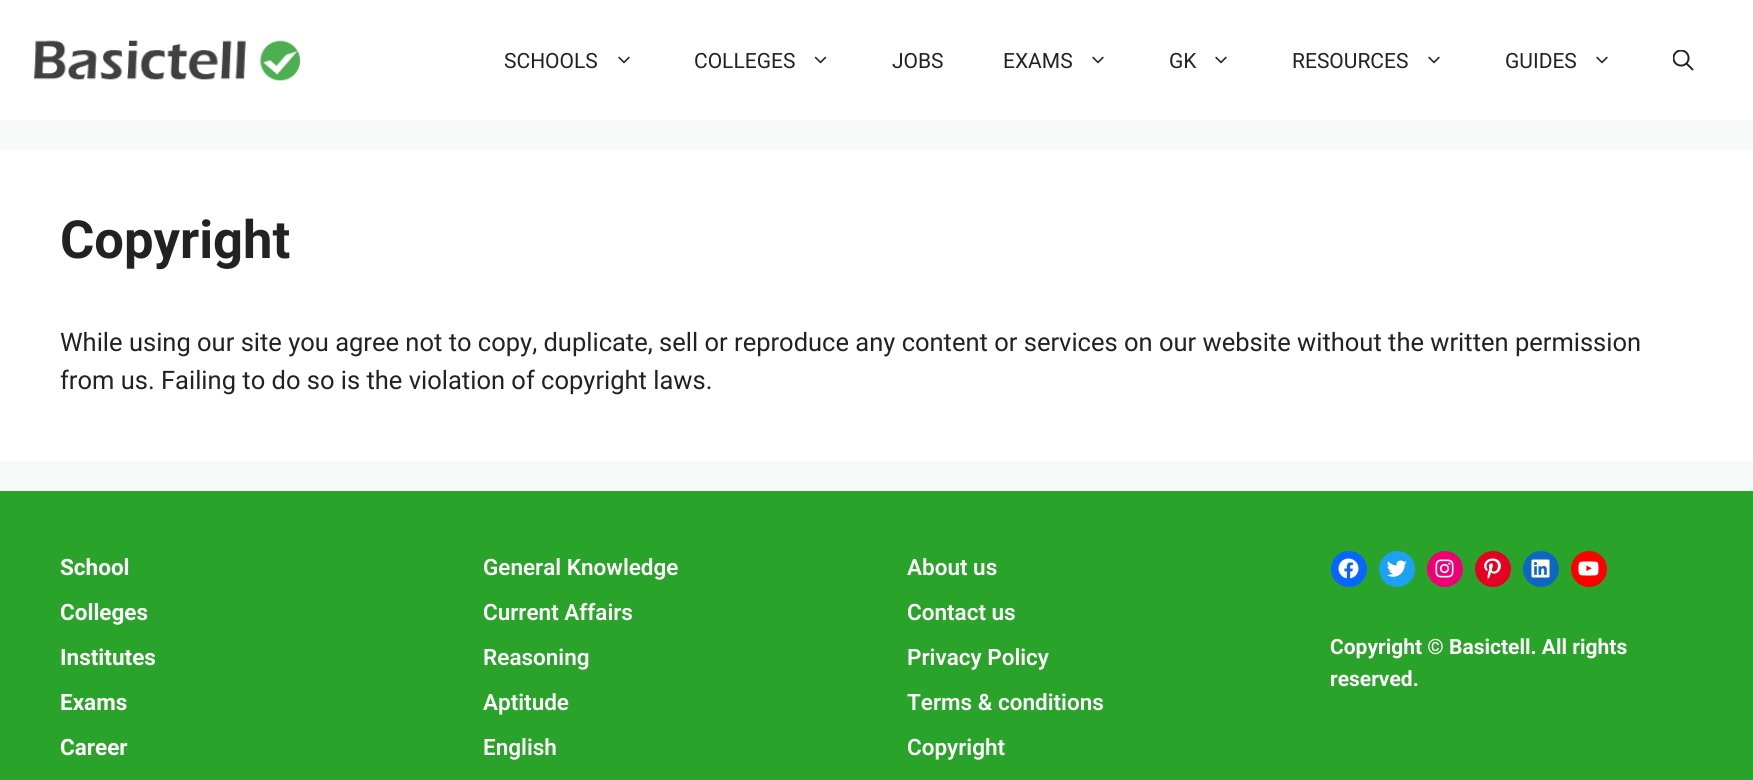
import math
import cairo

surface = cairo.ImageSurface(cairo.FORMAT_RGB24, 1753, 780)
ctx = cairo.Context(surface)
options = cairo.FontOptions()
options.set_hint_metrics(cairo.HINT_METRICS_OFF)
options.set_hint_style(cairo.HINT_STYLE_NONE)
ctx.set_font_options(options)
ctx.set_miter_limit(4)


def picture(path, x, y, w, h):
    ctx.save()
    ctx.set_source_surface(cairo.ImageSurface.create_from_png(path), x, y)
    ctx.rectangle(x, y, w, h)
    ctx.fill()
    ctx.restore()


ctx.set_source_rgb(0.969, 0.973, 0.976)
ctx.paint()
ctx.set_source_rgb(1, 1, 1)
ctx.rectangle(0, 0, 1753, 120)
ctx.fill()
picture("img1.png", 34, 40, 266, 41)
ctx.select_font_face("Roboto")
ctx.set_font_size(21)
ctx.set_source_rgb(0.133, 0.133, 0.133)
ctx.move_to(504, 68)
ctx.show_text("SCHOOLS")
picture("img2.png", 618, 56, 12, 8)
ctx.move_to(694, 68)
ctx.show_text("COLLEGES")
picture("img3.png", 814, 56, 13, 8)
ctx.move_to(892, 68)
ctx.show_text("JOBS")
ctx.move_to(1003, 68)
ctx.show_text("EXAMS")
picture("img2.png", 1092, 56, 12, 8)
ctx.move_to(1169, 68)
ctx.show_text("GK")
picture("img2.png", 1215, 56, 12, 8)
ctx.move_to(1292, 68)
ctx.show_text("RESOURCES")
picture("img2.png", 1428, 56, 12, 8)
ctx.move_to(1505, 68)
ctx.show_text("GUIDES")
picture("img2.png", 1596, 56, 12, 8)
picture("img4.png", 1673, 50, 21, 21)
ctx.set_source_rgb(1, 1, 1)
ctx.rectangle(0, 150, 1753, 311)
ctx.fill()
ctx.select_font_face("Roboto", cairo.FONT_SLANT_NORMAL, cairo.FONT_WEIGHT_BOLD)
ctx.set_font_size(52.5)
ctx.set_source_rgb(0.133, 0.133, 0.133)
ctx.move_to(60, 258)
ctx.show_text("Copyright")
ctx.select_font_face("Roboto")
ctx.set_font_size(25.5)
ctx.move_to(60, 351)
ctx.show_text("While using our site you agree not to copy, duplicate, sell or reproduce any content or services on our website without the written permission")
ctx.move_to(60, 389)
ctx.show_text("from us. Failing to do so is the violation of copyright laws.")
ctx.set_source_rgb(0.161, 0.639, 0.161)
ctx.rectangle(0, 491, 1753, 289)
ctx.fill()
ctx.select_font_face("Roboto", cairo.FONT_SLANT_NORMAL, cairo.FONT_WEIGHT_BOLD)
ctx.set_font_size(22.5)
ctx.set_source_rgb(1, 1, 1)
ctx.move_to(60, 575)
ctx.show_text("School")
ctx.move_to(60, 620)
ctx.show_text("Colleges")
ctx.move_to(60, 665)
ctx.show_text("Institutes")
ctx.move_to(60, 710)
ctx.show_text("Exams")
ctx.move_to(60, 755)
ctx.show_text("Career")
ctx.select_font_face("Roboto SemiBold")
ctx.move_to(483, 575)
ctx.show_text("General Knowledge")
ctx.move_to(483, 620)
ctx.show_text("Current Affairs")
ctx.move_to(483, 665)
ctx.show_text("Reasoning")
ctx.move_to(483, 710)
ctx.show_text("Aptitude")
ctx.move_to(483, 755)
ctx.show_text("English")
ctx.move_to(907, 575)
ctx.show_text("About us")
ctx.move_to(907, 620)
ctx.show_text("Contact us")
ctx.move_to(907, 665)
ctx.show_text("Privacy Policy")
ctx.move_to(907, 710)
ctx.show_text("Terms & conditions")
ctx.move_to(907, 755)
ctx.show_text("Copyright")
ctx.set_source_rgb(0.031, 0.4, 1)
ctx.new_path()
ctx.arc(1349, 569, 18, 0, 2 * math.pi)
ctx.fill()
picture("img5.png", 1338, 558, 21, 21)
ctx.set_source_rgb(0.114, 0.631, 0.949)
ctx.arc(1397, 569, 18, 0, 2 * math.pi)
ctx.fill()
picture("img6.png", 1387, 560, 20, 17)
ctx.set_source_rgb(0.941, 0, 0.459)
ctx.arc(1445, 569, 18, 0, 2 * math.pi)
ctx.fill()
picture("img7.png", 1435, 559, 19, 19)
ctx.set_source_rgb(0.902, 0.004, 0.133)
ctx.arc(1493, 569, 18, 0, 2 * math.pi)
ctx.fill()
picture("img8.png", 1484, 558, 17, 22)
ctx.set_source_rgb(0.051, 0.4, 0.761)
ctx.arc(1541, 569, 18, 0, 2 * math.pi)
ctx.fill()
picture("img9.png", 1531, 559, 19, 19)
ctx.set_source_rgb(1, 0, 0)
ctx.arc(1589, 569, 18, 0, 2 * math.pi)
ctx.fill()
picture("img10.png", 1578, 561, 21, 15)
ctx.select_font_face("Roboto", cairo.FONT_SLANT_NORMAL, cairo.FONT_WEIGHT_BOLD)
ctx.set_font_size(21)
ctx.set_source_rgb(1, 1, 1)
ctx.move_to(1330, 654)
ctx.show_text("Copyright © Basictell. All rights")
ctx.move_to(1330, 686)
ctx.show_text("reserved.")
surface.write_to_png("page.png")
